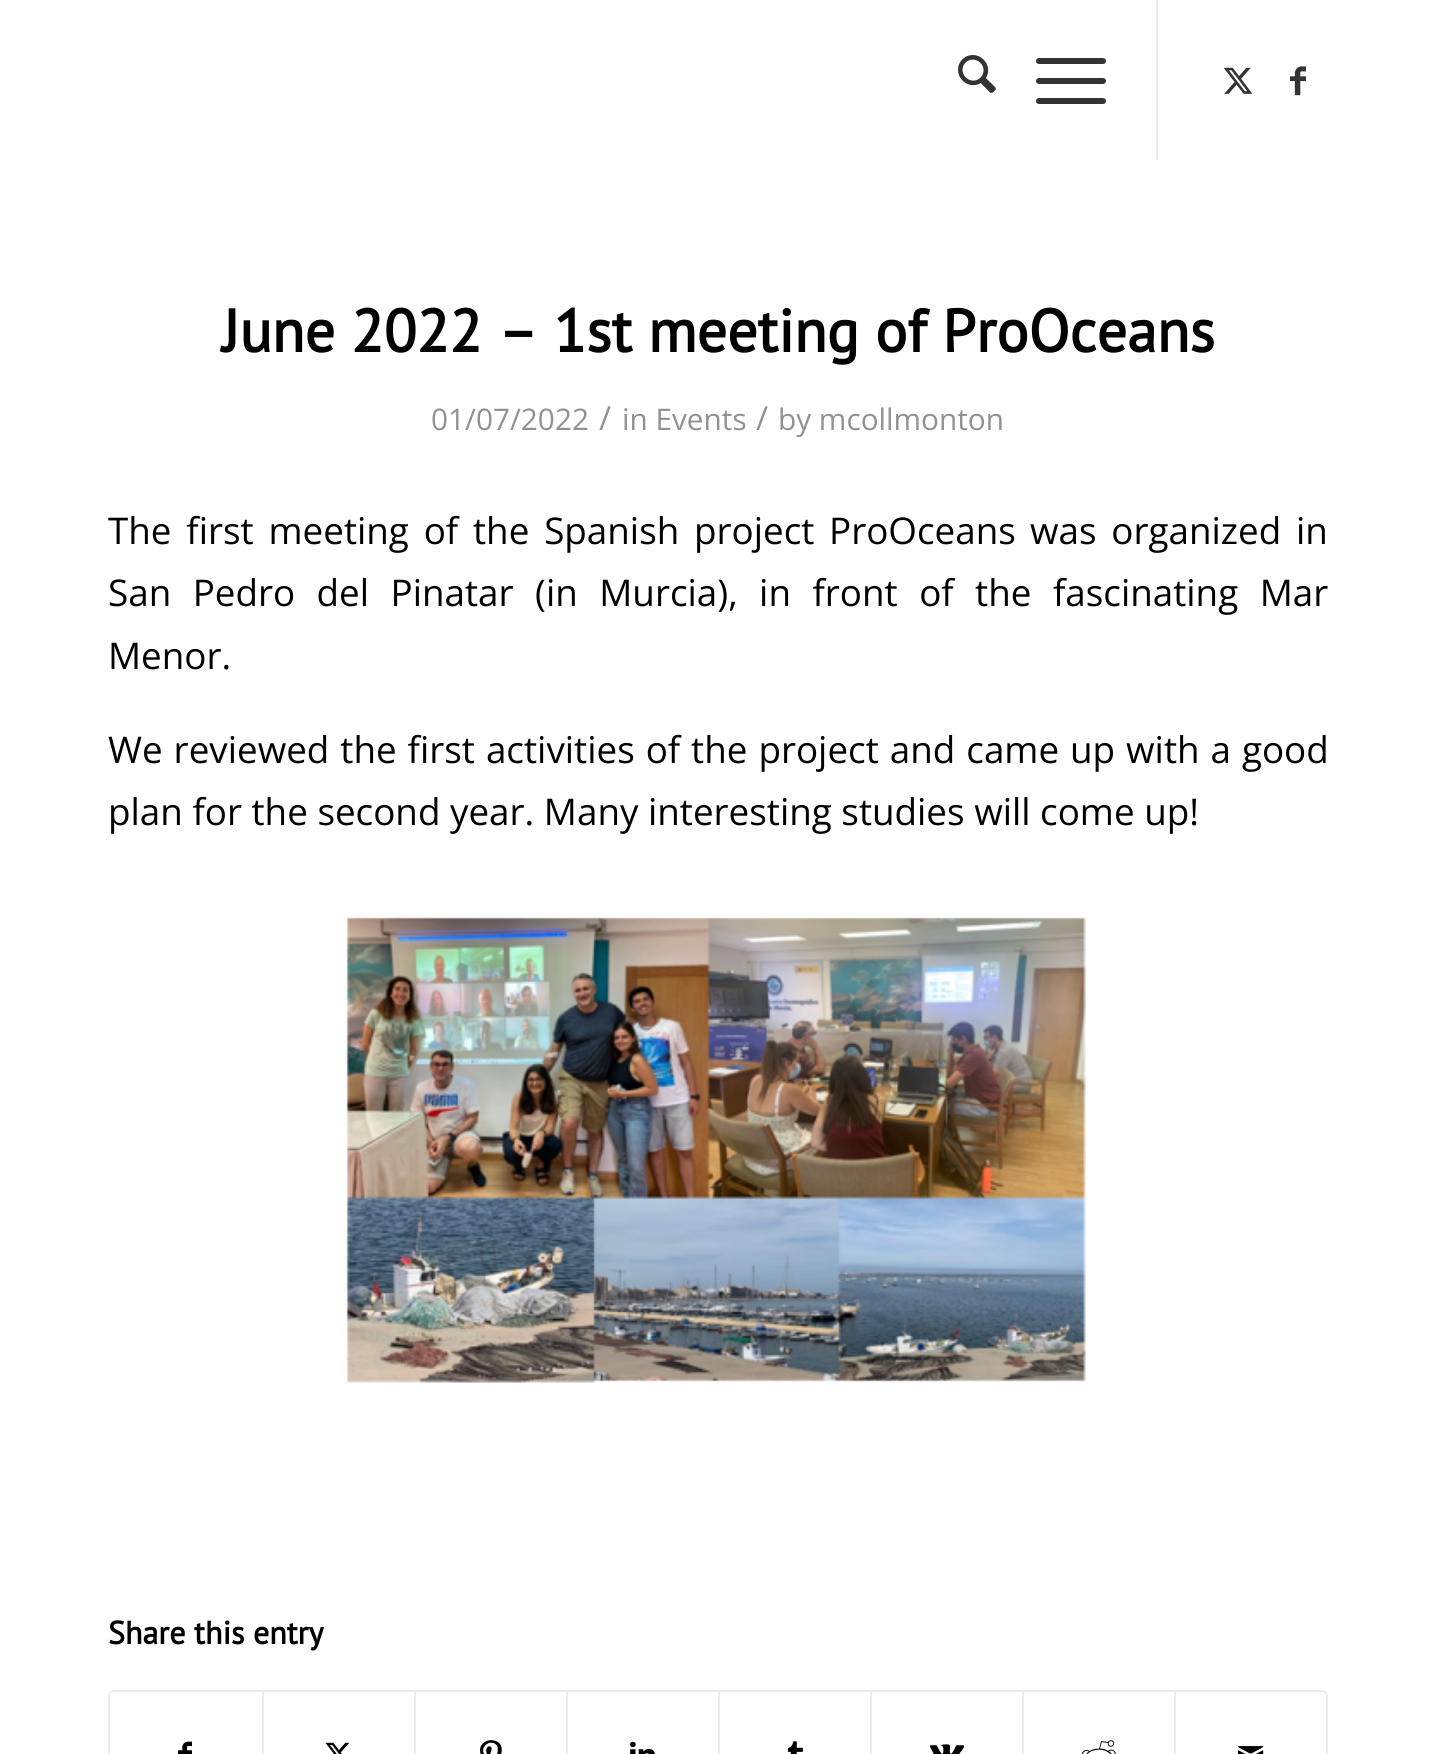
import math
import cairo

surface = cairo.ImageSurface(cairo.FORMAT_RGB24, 1436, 1754)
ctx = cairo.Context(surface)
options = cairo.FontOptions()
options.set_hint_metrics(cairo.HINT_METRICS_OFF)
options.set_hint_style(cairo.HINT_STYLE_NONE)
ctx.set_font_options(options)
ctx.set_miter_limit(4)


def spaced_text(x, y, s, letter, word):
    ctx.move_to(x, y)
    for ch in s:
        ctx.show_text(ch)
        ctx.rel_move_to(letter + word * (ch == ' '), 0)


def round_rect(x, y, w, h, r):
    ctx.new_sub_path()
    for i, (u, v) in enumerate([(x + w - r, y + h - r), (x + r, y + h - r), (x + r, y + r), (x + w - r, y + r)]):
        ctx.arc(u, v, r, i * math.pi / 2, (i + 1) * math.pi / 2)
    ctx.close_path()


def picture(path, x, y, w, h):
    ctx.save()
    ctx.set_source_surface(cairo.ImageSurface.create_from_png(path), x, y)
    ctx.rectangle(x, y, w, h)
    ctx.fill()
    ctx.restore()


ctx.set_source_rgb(1, 1, 1)
ctx.paint()
ctx.set_source_rgb(0.922, 0.922, 0.922)
ctx.rectangle(1156, 0, 2, 160)
ctx.fill()
picture("img1.png", 958, 55, 38, 38)
ctx.set_source_rgb(0.2, 0.2, 0.2)
round_rect(1036, 78, 70, 6, 3)
ctx.fill()
round_rect(1036, 58, 70, 6, 3)
ctx.fill()
round_rect(1036, 98, 70, 6, 3)
ctx.fill()
picture("img2.png", 1223, 67, 30, 27)
picture("img3.png", 1290, 66, 16, 30)
ctx.select_font_face("PT Sans", cairo.FONT_SLANT_NORMAL, cairo.FONT_WEIGHT_BOLD)
ctx.set_font_size(60)
ctx.set_source_rgb(0, 0, 0)
ctx.move_to(222, 352)
ctx.show_text("June 2022 – 1st meeting of ProOceans")
ctx.select_font_face("Open Sans")
ctx.set_font_size(29.75)
ctx.set_source_rgb(0.569, 0.569, 0.569)
ctx.move_to(431, 430)
ctx.show_text("01/07/2022")
ctx.set_font_size(33)
ctx.move_to(599, 430)
ctx.show_text("/")
ctx.set_font_size(29.75)
ctx.move_to(622, 430)
ctx.show_text("in Events")
ctx.set_font_size(33)
ctx.move_to(756, 430)
ctx.show_text("/")
ctx.set_font_size(29.75)
ctx.move_to(778, 430)
ctx.show_text("by mcollmonton")
ctx.set_font_size(36.8)
ctx.set_source_rgb(0, 0, 0)
spaced_text(108, 544, "The first meeting of the Spanish project", 0, 5.25)
ctx.move_to(829, 544)
ctx.show_text("ProOceans")
spaced_text(1030, 544, "was organized in", 0, 5.25)
spaced_text(108, 606, "San Pedro del Pinatar (in Murcia), in front of the fascinating Mar", 0, 11.9)
ctx.move_to(108, 669)
ctx.show_text("Menor.")
spaced_text(108, 763, "We reviewed the first activities of the project and came up with a good", 0, 1.4)
ctx.move_to(108, 825)
ctx.show_text("plan for the second year. Many interesting studies will come up!")
picture("img4.png", 346, 917, 740, 466)
ctx.select_font_face("PT Sans", cairo.FONT_SLANT_NORMAL, cairo.FONT_WEIGHT_BOLD)
ctx.set_font_size(32)
ctx.move_to(108, 1644)
ctx.show_text("Share this entry")
round_rect(109, 1691, 1218, 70, 5)
ctx.set_source_rgb(0.922, 0.922, 0.922)
ctx.stroke()
picture("img5.png", 178, 1741, 14, 13)
ctx.rectangle(262, 1692, 2, 62)
ctx.fill()
picture("img6.png", 325, 1742, 24, 12)
ctx.rectangle(414, 1692, 2, 62)
ctx.fill()
picture("img7.png", 480, 1740, 22, 14)
ctx.rectangle(566, 1692, 2, 62)
ctx.fill()
picture("img8.png", 630, 1741, 25, 13)
ctx.rectangle(718, 1692, 2, 62)
ctx.fill()
picture("img9.png", 788, 1741, 15, 13)
ctx.rectangle(870, 1692, 2, 62)
ctx.fill()
picture("img10.png", 930, 1744, 35, 10)
ctx.rectangle(1022, 1692, 2, 62)
ctx.fill()
picture("img11.png", 1082, 1740, 34, 14)
ctx.rectangle(1174, 1692, 2, 62)
ctx.fill()
picture("img12.png", 1238, 1746, 26, 8)
surface.write_to_png("page.png")
